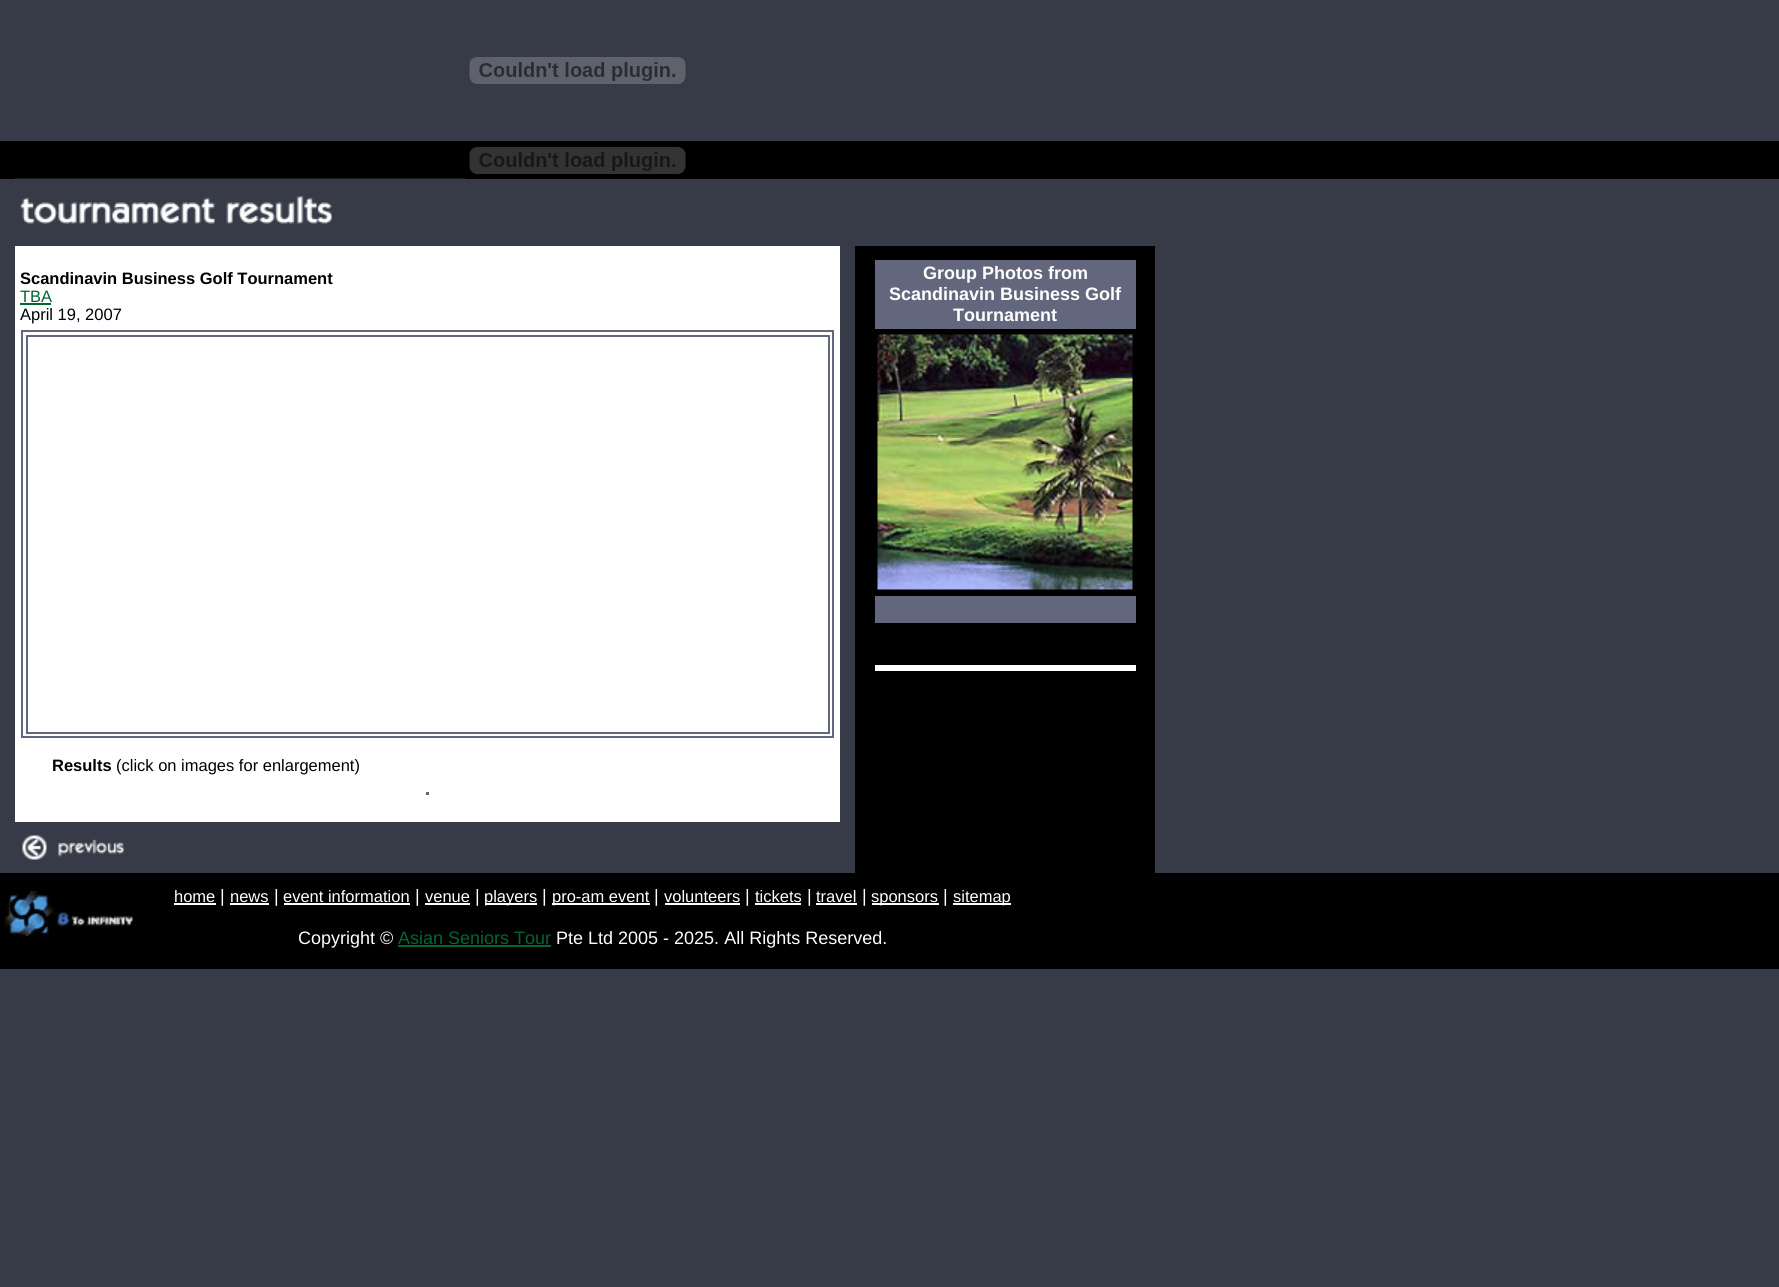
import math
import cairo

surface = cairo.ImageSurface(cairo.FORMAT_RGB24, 1779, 1287)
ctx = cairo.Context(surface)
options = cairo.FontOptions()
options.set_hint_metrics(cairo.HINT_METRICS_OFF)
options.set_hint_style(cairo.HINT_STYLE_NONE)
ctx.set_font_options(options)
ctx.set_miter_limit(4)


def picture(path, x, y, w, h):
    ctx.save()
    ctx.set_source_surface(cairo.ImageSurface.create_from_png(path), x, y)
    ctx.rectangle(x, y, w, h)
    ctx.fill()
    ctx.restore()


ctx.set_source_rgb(0.216, 0.227, 0.278)
ctx.paint()
picture("img1.png", 469, 57, 217, 27)
ctx.set_source_rgb(0, 0, 0)
ctx.rectangle(0, 141, 1779, 38)
ctx.fill()
picture("img2.png", 469, 147, 217, 27)
ctx.rectangle(855, 246, 300, 627)
ctx.fill()
picture("img3.png", 15, 178, 450, 46)
ctx.set_source_rgb(1, 1, 1)
ctx.rectangle(15, 246, 825, 576)
ctx.fill()
ctx.select_font_face("Liberation Sans", cairo.FONT_SLANT_NORMAL, cairo.FONT_WEIGHT_BOLD)
ctx.set_font_size(16.5)
ctx.set_source_rgb(0, 0, 0)
ctx.move_to(20, 284)
ctx.show_text("Scandinavin Business Golf Tournament")
ctx.select_font_face("Liberation Sans")
ctx.set_source_rgb(0, 0.4, 0.2)
ctx.move_to(20, 302)
ctx.show_text("TBA")
ctx.rectangle(20, 303, 31, 2)
ctx.fill()
ctx.set_source_rgb(0, 0, 0)
ctx.move_to(20, 320)
ctx.show_text("April 19, 2007")
ctx.rectangle(22, 331, 811, 406)
ctx.set_source_rgb(0.384, 0.404, 0.49)
ctx.stroke()
ctx.rectangle(27, 336, 802, 397)
ctx.stroke()
ctx.select_font_face("Liberation Sans", cairo.FONT_SLANT_NORMAL, cairo.FONT_WEIGHT_BOLD)
ctx.set_source_rgb(0, 0, 0)
ctx.move_to(52, 771)
ctx.show_text("Results")
ctx.select_font_face("Liberation Sans")
ctx.move_to(116, 771)
ctx.show_text("(click on images for enlargement)")
ctx.set_source_rgb(0.384, 0.404, 0.49)
ctx.rectangle(426, 792, 3, 3)
ctx.fill()
picture("img4.png", 22, 835, 103, 25)
ctx.rectangle(875, 260, 261, 69)
ctx.fill()
ctx.select_font_face("Liberation Sans", cairo.FONT_SLANT_NORMAL, cairo.FONT_WEIGHT_BOLD)
ctx.set_font_size(18)
ctx.set_source_rgb(1, 1, 1)
ctx.move_to(923, 279)
ctx.show_text("Group Photos from")
ctx.move_to(889, 300)
ctx.show_text("Scandinavin Business Golf")
ctx.move_to(953, 321)
ctx.show_text("Tournament")
picture("img5.png", 877, 334, 256, 256)
ctx.set_source_rgb(0.384, 0.404, 0.49)
ctx.rectangle(875, 596, 261, 27)
ctx.fill()
ctx.set_source_rgb(1, 1, 1)
ctx.rectangle(875, 665, 261, 6)
ctx.fill()
ctx.set_source_rgb(0, 0, 0)
ctx.rectangle(0, 873, 1779, 96)
ctx.fill()
picture("img6.png", 4, 891, 130, 45)
ctx.select_font_face("Liberation Sans")
ctx.set_font_size(16.5)
ctx.set_source_rgb(1, 1, 1)
ctx.move_to(174, 902)
ctx.show_text("home")
ctx.rectangle(174, 903, 42, 2)
ctx.fill()
ctx.set_font_size(18)
ctx.move_to(220, 902)
ctx.show_text("|")
ctx.set_font_size(16.5)
ctx.move_to(230, 902)
ctx.show_text("news")
ctx.rectangle(230, 903, 39, 2)
ctx.fill()
ctx.set_font_size(18)
ctx.move_to(274, 902)
ctx.show_text("|")
ctx.set_font_size(16.5)
ctx.move_to(283, 902)
ctx.show_text("event information")
ctx.rectangle(284, 903, 126, 2)
ctx.fill()
ctx.set_font_size(18)
ctx.move_to(415, 902)
ctx.show_text("|")
ctx.set_font_size(16.5)
ctx.move_to(425, 902)
ctx.show_text("venue")
ctx.rectangle(425, 903, 45, 2)
ctx.fill()
ctx.set_font_size(18)
ctx.move_to(475, 902)
ctx.show_text("|")
ctx.rectangle(485, 903, 52, 2)
ctx.fill()
ctx.set_font_size(16.5)
ctx.move_to(484, 902)
ctx.show_text("players")
ctx.set_font_size(18)
ctx.move_to(542, 902)
ctx.show_text("|")
ctx.rectangle(552, 903, 98, 2)
ctx.fill()
ctx.set_font_size(16.5)
ctx.move_to(552, 902)
ctx.show_text("pro-am event")
ctx.set_font_size(18)
ctx.move_to(654, 902)
ctx.show_text("|")
ctx.set_font_size(16.5)
ctx.move_to(664, 902)
ctx.show_text("volunteers")
ctx.rectangle(665, 903, 75, 2)
ctx.fill()
ctx.set_font_size(18)
ctx.move_to(745, 902)
ctx.show_text("|")
ctx.set_font_size(16.5)
ctx.move_to(755, 902)
ctx.show_text("tickets")
ctx.rectangle(755, 903, 46, 2)
ctx.fill()
ctx.set_font_size(18)
ctx.move_to(807, 902)
ctx.show_text("|")
ctx.set_font_size(16.5)
ctx.move_to(816, 902)
ctx.show_text("travel")
ctx.rectangle(816, 903, 41, 2)
ctx.fill()
ctx.set_font_size(18)
ctx.move_to(862, 902)
ctx.show_text("|")
ctx.rectangle(872, 903, 67, 2)
ctx.fill()
ctx.set_font_size(16.5)
ctx.move_to(871, 902)
ctx.show_text("sponsors")
ctx.set_font_size(18)
ctx.move_to(943, 902)
ctx.show_text("|")
ctx.rectangle(953, 903, 58, 2)
ctx.fill()
ctx.set_font_size(16.5)
ctx.move_to(953, 902)
ctx.show_text("sitemap")
ctx.set_font_size(18)
ctx.move_to(298, 944)
ctx.show_text("Copyright ©")
ctx.set_source_rgb(0, 0.4, 0.2)
ctx.move_to(398, 944)
ctx.show_text("Asian Seniors Tour")
ctx.rectangle(398, 945, 153, 2)
ctx.fill()
ctx.set_source_rgb(1, 1, 1)
ctx.move_to(556, 944)
ctx.show_text("Pte Ltd 2005 - 2025. All Rights Reserved.")
surface.write_to_png("page.png")
